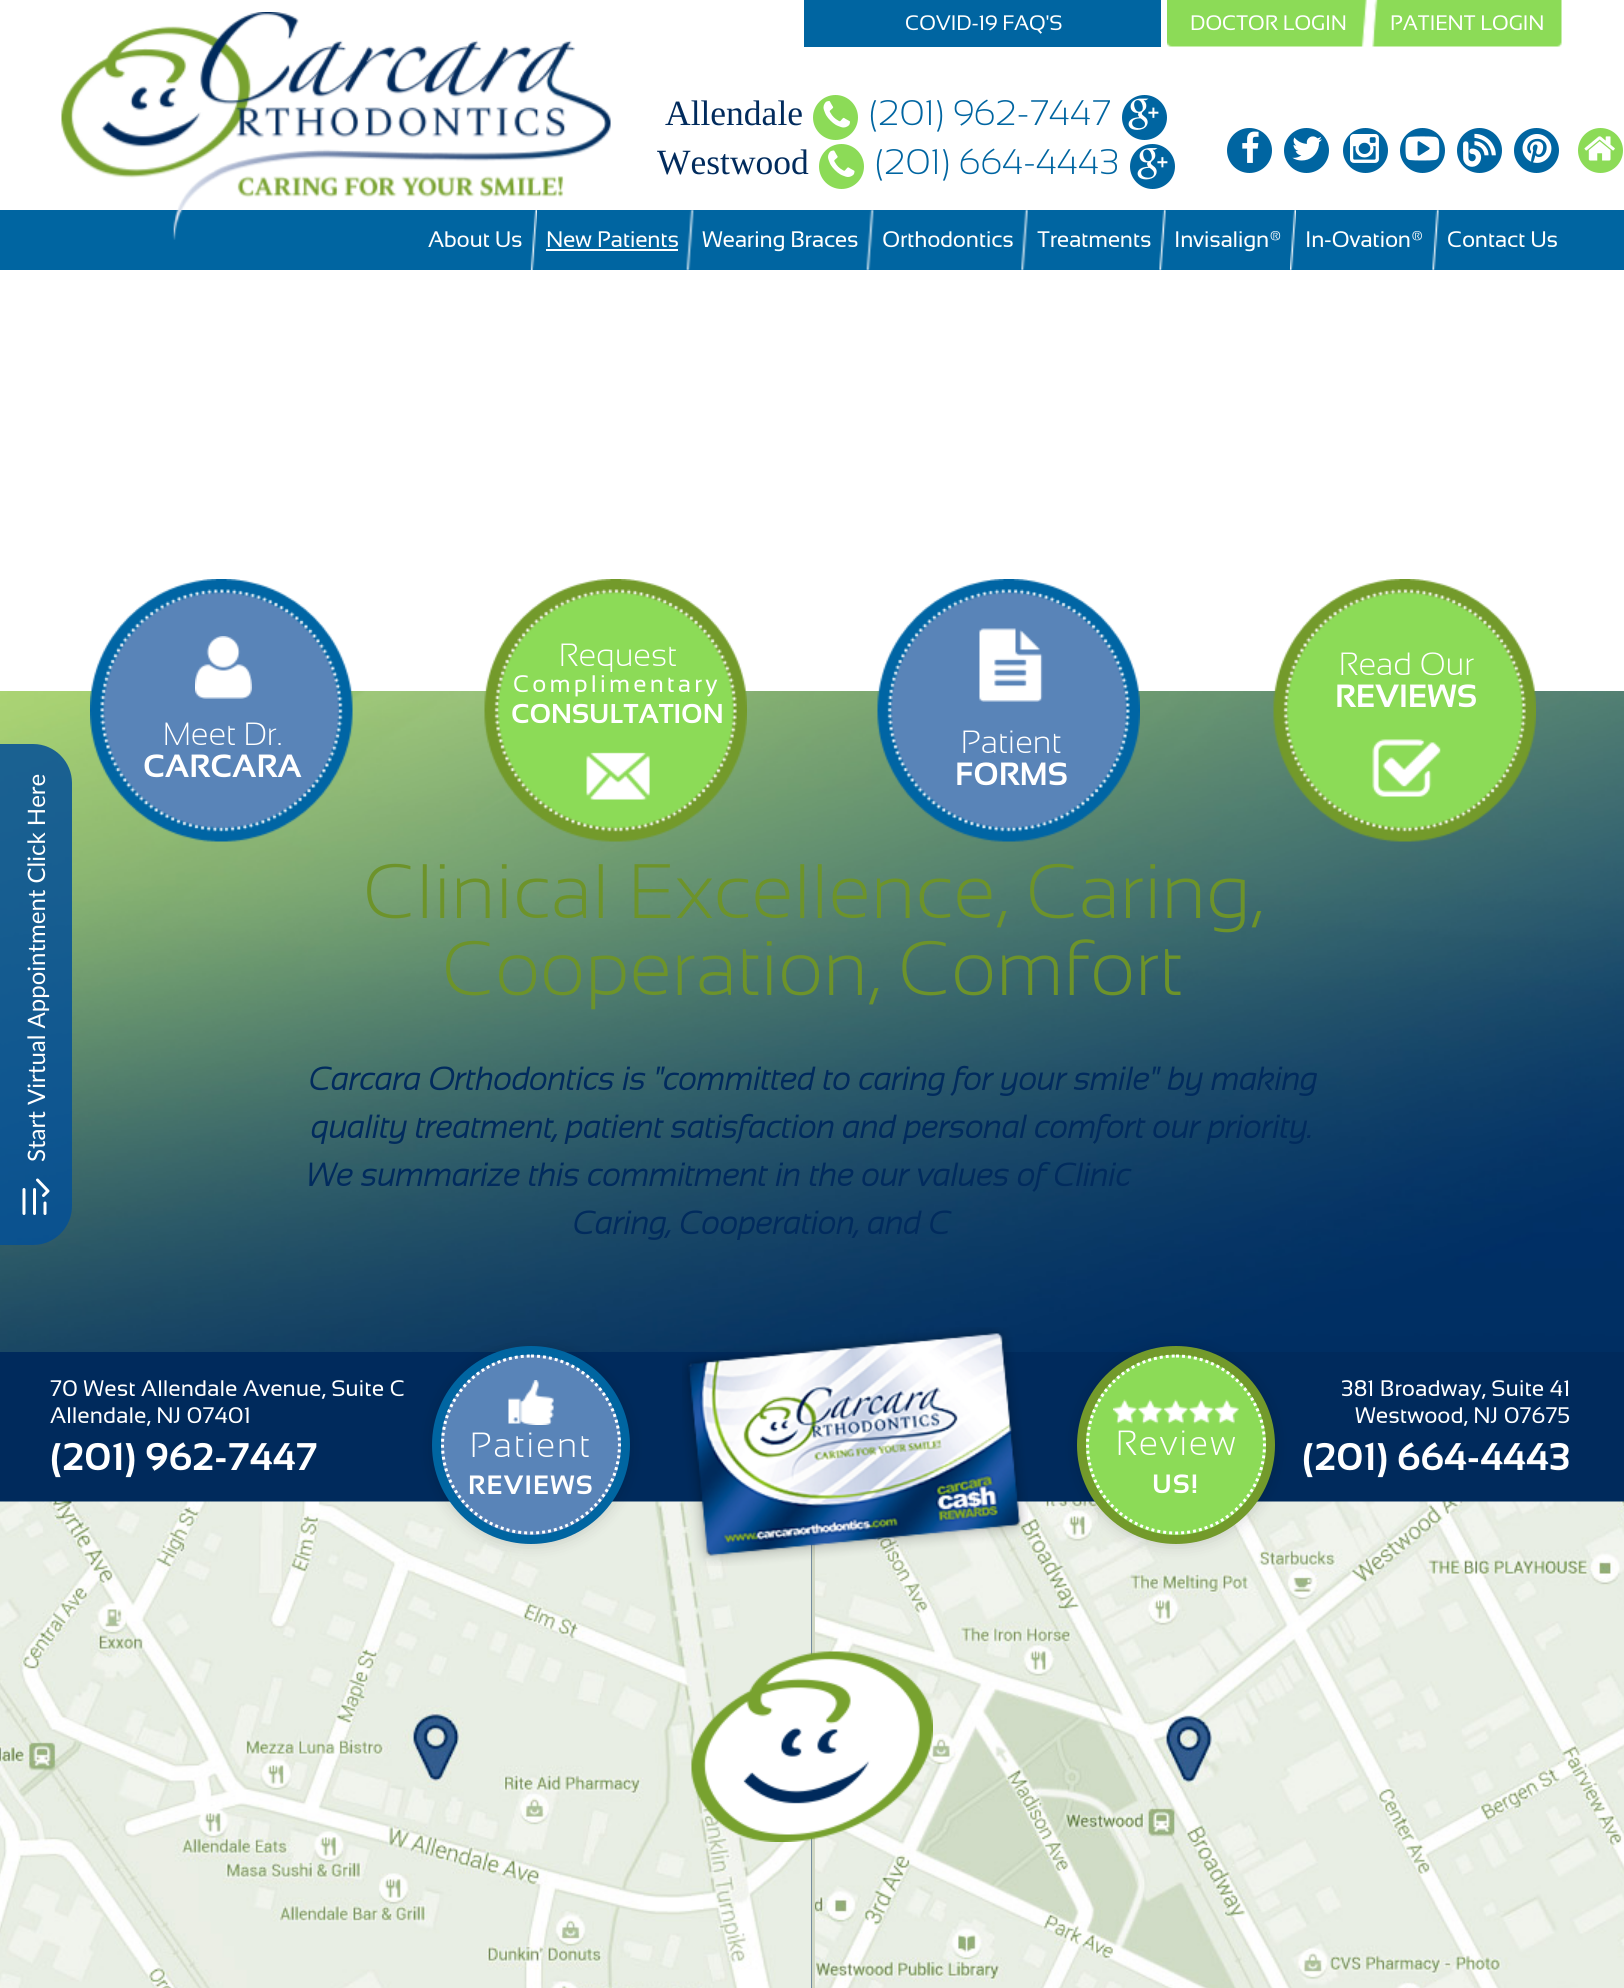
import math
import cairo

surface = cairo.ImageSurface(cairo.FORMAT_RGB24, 1624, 1988)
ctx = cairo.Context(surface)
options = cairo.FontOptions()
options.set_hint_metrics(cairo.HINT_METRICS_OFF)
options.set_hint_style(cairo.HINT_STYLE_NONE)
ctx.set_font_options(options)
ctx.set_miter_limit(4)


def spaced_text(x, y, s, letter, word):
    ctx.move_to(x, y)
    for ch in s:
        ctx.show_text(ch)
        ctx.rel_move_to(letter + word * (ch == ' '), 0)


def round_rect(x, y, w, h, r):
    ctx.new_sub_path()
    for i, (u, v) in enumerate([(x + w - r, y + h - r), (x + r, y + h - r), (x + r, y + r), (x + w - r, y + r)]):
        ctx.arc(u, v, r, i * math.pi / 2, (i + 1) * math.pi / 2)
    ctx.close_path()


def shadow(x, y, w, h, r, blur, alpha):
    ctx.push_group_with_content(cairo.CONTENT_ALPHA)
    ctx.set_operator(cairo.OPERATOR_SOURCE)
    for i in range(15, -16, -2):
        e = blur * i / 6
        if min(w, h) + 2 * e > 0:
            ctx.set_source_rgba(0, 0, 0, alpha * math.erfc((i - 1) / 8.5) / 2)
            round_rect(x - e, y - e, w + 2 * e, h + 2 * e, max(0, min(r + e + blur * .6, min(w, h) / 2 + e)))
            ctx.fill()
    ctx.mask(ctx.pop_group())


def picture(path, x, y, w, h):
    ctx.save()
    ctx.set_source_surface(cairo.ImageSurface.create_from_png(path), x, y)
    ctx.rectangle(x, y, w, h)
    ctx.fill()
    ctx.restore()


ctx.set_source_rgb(1, 1, 1)
ctx.paint()
ctx.set_source_rgb(0, 0.396, 0.631)
ctx.rectangle(0, 210, 1624, 60)
ctx.fill()
ctx.select_font_face("Sansation")
ctx.set_font_size(22.5)
ctx.set_source_rgb(1, 1, 1)
spaced_text(428, 247, "About Us", -0.3, 0)
picture("img15.png", 530, 210, 7, 60)
spaced_text(546, 247, "New Patients", -0.3, 0)
picture("img1.png", 61, 12, 550, 228)
ctx.set_source_rgb(0, 0.396, 0.631)
ctx.rectangle(804, 0, 357, 47)
ctx.fill()
ctx.set_font_size(21)
ctx.set_source_rgb(1, 1, 1)
spaced_text(905, 30, "COVID-19 FAQ'S", -0.25, 0)
picture("img2.png", 1167, 0, 200, 47)
spaced_text(1190, 30, "DOCTOR LOGIN", -0.25, 0)
picture("img3.png", 1372, 0, 190, 47)
spaced_text(1390, 30, "PATIENT LOGIN", -0.25, 0)
ctx.select_font_face("Liberation Serif")
ctx.set_font_size(35.5)
ctx.set_source_rgb(0.004, 0.169, 0.365)
ctx.move_to(665, 125)
ctx.show_text("Allendale")
ctx.set_source_rgb(0.549, 0.859, 0.341)
ctx.new_path()
ctx.arc(835.5, 117.5, 22.5, 0, 2 * math.pi)
ctx.fill()
picture("img4.png", 823, 101, 27, 27)
ctx.select_font_face("Sansation Light Light")
ctx.set_source_rgb(0, 0.396, 0.631)
ctx.move_to(869, 125)
ctx.show_text("(201) 962-7447")
ctx.new_path()
ctx.arc(1144.5, 117.5, 22.5, 0, 2 * math.pi)
ctx.fill()
picture("img5.png", 1128, 98, 31, 32)
ctx.select_font_face("Liberation Serif")
ctx.set_source_rgb(0.004, 0.169, 0.365)
ctx.move_to(657, 174)
ctx.show_text("Westwood")
ctx.set_source_rgb(0.549, 0.859, 0.341)
ctx.new_path()
ctx.arc(841.5, 166.5, 22.5, 0, 2 * math.pi)
ctx.fill()
picture("img6.png", 828, 150, 27, 27)
ctx.select_font_face("Sansation Light Light")
ctx.set_source_rgb(0, 0.396, 0.631)
ctx.move_to(875, 174)
ctx.show_text("(201) 664-4443")
ctx.new_path()
ctx.arc(1152.5, 166.5, 22.5, 0, 2 * math.pi)
ctx.fill()
picture("img7.png", 1137, 148, 31, 32)
ctx.arc(1249.5, 150.5, 22.5, 0, 2 * math.pi)
ctx.fill()
picture("img8.png", 1242, 131, 17, 32)
ctx.arc(1306.5, 150.5, 22.5, 0, 2 * math.pi)
ctx.fill()
picture("img9.png", 1292, 136, 30, 25)
ctx.arc(1365.5, 150.5, 22.5, 0, 2 * math.pi)
ctx.fill()
picture("img10.png", 1350, 134, 29, 29)
ctx.arc(1422.5, 150.5, 22.5, 0, 2 * math.pi)
ctx.fill()
picture("img11.png", 1405, 136, 35, 25)
ctx.arc(1479.5, 150.5, 22.5, 0, 2 * math.pi)
ctx.fill()
picture("img12.png", 1463, 133, 33, 34)
ctx.arc(1536.5, 150.5, 22.5, 0, 2 * math.pi)
ctx.fill()
picture("img13.png", 1522, 134, 30, 29)
ctx.set_source_rgb(0.549, 0.859, 0.341)
ctx.arc(1600.5, 150.5, 22.5, 0, 2 * math.pi)
ctx.fill()
picture("img14.png", 1584, 136, 31, 25)
ctx.set_source_rgb(1, 1, 1)
ctx.rectangle(546, 249, 132, 2)
ctx.fill()
picture("img16.png", 686, 210, 8, 60)
ctx.select_font_face("Sansation")
ctx.set_font_size(22.5)
spaced_text(702, 247, "Wearing Braces", -0.3, 0)
picture("img16.png", 866, 210, 8, 60)
spaced_text(882, 247, "Orthodontics", -0.3, 0)
picture("img17.png", 1021, 210, 7, 60)
spaced_text(1037, 247, "Treatments", -0.3, 0)
picture("img18.png", 1159, 210, 7, 60)
spaced_text(1174, 247, "Invisalign®", -0.3, 0)
picture("img19.png", 1290, 210, 6, 60)
spaced_text(1305, 247, "In-Ovation®", -0.3, 0)
picture("img18.png", 1432, 210, 7, 60)
spaced_text(1447, 247, "Contact Us", -0.3, 0)
picture("img28.png", 0, 691, 1624, 661)
picture("img20.png", 484, 579, 263, 263)
ctx.select_font_face("Sansation Light Light")
ctx.set_font_size(32.15)
ctx.move_to(559, 666)
ctx.show_text("Request")
ctx.select_font_face("Sansation")
ctx.set_font_size(24)
spaced_text(513, 692, "Complimentary", 3.1, 0)
ctx.select_font_face("Sansation", cairo.FONT_SLANT_NORMAL, cairo.FONT_WEIGHT_BOLD)
ctx.set_font_size(27.25)
ctx.move_to(511, 723)
ctx.show_text("CONSULTATION")
picture("img21.png", 586, 752, 64, 48)
picture("img22.png", 90, 579, 263, 263)
picture("img23.png", 195, 636, 57, 63)
ctx.select_font_face("Sansation Light Light")
ctx.set_font_size(32.15)
ctx.move_to(163, 745)
ctx.show_text("Meet Dr.")
ctx.select_font_face("Sansation", cairo.FONT_SLANT_NORMAL, cairo.FONT_WEIGHT_BOLD)
ctx.move_to(143, 777)
ctx.show_text("CARCARA")
picture("img24.png", 1273, 579, 263, 263)
ctx.select_font_face("Sansation Light Light")
ctx.move_to(1339, 675)
ctx.show_text("Read Our")
ctx.select_font_face("Sansation", cairo.FONT_SLANT_NORMAL, cairo.FONT_WEIGHT_BOLD)
ctx.move_to(1335, 707)
ctx.show_text("REVIEWS")
picture("img25.png", 1372, 739, 69, 58)
picture("img26.png", 877, 579, 263, 263)
picture("img27.png", 979, 628, 64, 74)
ctx.select_font_face("Sansation Light Light")
ctx.move_to(961, 753)
ctx.show_text("Patient")
ctx.select_font_face("Sansation", cairo.FONT_SLANT_NORMAL, cairo.FONT_WEIGHT_BOLD)
ctx.move_to(955, 785)
ctx.show_text("FORMS")
ctx.set_source_rgba(0.02, 0.314, 0.588, 0.86)
ctx.new_path()
ctx.move_to(0, 1245)
ctx.line_to(0, 744)
ctx.line_to(33, 744)
ctx.curve_to(55, 744, 72, 762, 72, 783)
ctx.line_to(72, 1206)
ctx.curve_to(72, 1227, 55, 1245, 33, 1245)
ctx.close_path()
ctx.fill()
ctx.select_font_face("Lato")
ctx.set_font_size(24)
ctx.set_source_rgb(1, 1, 1)
ctx.save()
ctx.translate(45, 1162)
ctx.rotate(-90 * math.pi / 180)
ctx.move_to(0, 0)
ctx.show_text("Start Virtual Appointment Click Here")
ctx.restore()
ctx.save()
ctx.new_path()
ctx.move_to(22.5, 1215)
ctx.line_to(22.5, 1177.5)
ctx.line_to(49.5, 1177.5)
ctx.line_to(49.5, 1215)
ctx.close_path()
ctx.clip()
ctx.new_path()
ctx.move_to(24, 1213.5)
ctx.line_to(24, 1189.5)
ctx.move_to(34.5, 1213.5)
ctx.line_to(34.5, 1189.5)
ctx.set_line_width(3)
ctx.set_line_cap(cairo.LINE_CAP_ROUND)
ctx.stroke()
ctx.restore()
ctx.new_path()
ctx.move_to(45, 1213.5)
ctx.line_to(45, 1203)
ctx.set_line_width(3)
ctx.set_line_cap(cairo.LINE_CAP_ROUND)
ctx.stroke()
ctx.new_path()
ctx.move_to(43.5, 1195.5)
ctx.line_to(48, 1191)
ctx.line_to(37.5, 1180)
ctx.set_line_join(cairo.LINE_JOIN_ROUND)
ctx.stroke()
ctx.select_font_face("Sansation Light Light")
ctx.set_font_size(77.1)
ctx.set_source_rgb(0.427, 0.576, 0.165)
ctx.move_to(363, 918)
ctx.show_text("Clinical Excellence, Caring,")
ctx.move_to(442, 995)
ctx.show_text("Cooperation, Comfort")
ctx.select_font_face("Sansation Light", cairo.FONT_SLANT_ITALIC, cairo.FONT_WEIGHT_BOLD)
ctx.set_font_size(32.15)
ctx.set_source_rgb(0.004, 0.169, 0.365)
ctx.move_to(309, 1090)
ctx.show_text("Carcara Orthodontics is \"committed to caring for your smile\" by making")
spaced_text(311, 1138, "quality treatment, patient satisfaction and personal comfort our priority.", 0, -0.25)
ctx.move_to(307, 1186)
ctx.show_text("We summarize this commitment in the our values of Clinic")
ctx.move_to(573, 1234)
ctx.show_text("Caring, Cooperation, and C")
ctx.set_source_rgb(0, 0.165, 0.361)
ctx.rectangle(0, 1352, 1624, 636)
ctx.fill()
picture("img32.png", 0, 1501, 812, 487)
ctx.set_source_rgb(0, 0, 0)
shadow(432, 1347, 198, 198, 99, 8, 0.15)
ctx.set_source_rgb(0, 0.396, 0.631)
ctx.arc(531, 1445, 99, 0, 2 * math.pi)
ctx.fill()
ctx.set_source_rgb(0.349, 0.518, 0.722)
ctx.arc(531, 1445, 90, 0, 2 * math.pi)
ctx.fill()
ctx.new_path()
ctx.move_to(531, 1356)
ctx.curve_to(580, 1356, 619.5, 1395.5, 619.5, 1444.5)
ctx.curve_to(619.5, 1493.5, 580, 1533, 531, 1533)
ctx.curve_to(482, 1533, 442.5, 1493.5, 442.5, 1444.5)
ctx.curve_to(442.5, 1395.5, 482, 1356, 531, 1356)
ctx.close_path()
ctx.set_source_rgb(1, 1, 1)
ctx.set_line_cap(cairo.LINE_CAP_BUTT)
ctx.set_line_join(cairo.LINE_JOIN_MITER)
ctx.set_dash([3, 3])
ctx.stroke()
picture("img29.png", 508, 1380, 46, 45)
ctx.select_font_face("Sansation Light Light")
ctx.set_font_size(35)
spaced_text(470, 1457, "Patient", 1.75, 0)
ctx.select_font_face("Sansation", cairo.FONT_SLANT_NORMAL, cairo.FONT_WEIGHT_BOLD)
ctx.set_font_size(26.5)
spaced_text(468, 1494, "REVIEWS", 1.25, 0)
ctx.set_source_rgb(0.82, 0.847, 0.769)
ctx.rectangle(812, 1543, 3, 445)
ctx.fill()
picture("img33.png", 815, 1501, 809, 487)
picture("img30.png", 682, 1327, 346, 239)
ctx.set_source_rgb(0, 0, 0)
shadow(1077, 1347, 198, 198, 99, 8, 0.15)
ctx.set_source_rgb(0.451, 0.604, 0.169)
ctx.arc(1176, 1445, 99, 0, 2 * math.pi)
ctx.fill()
ctx.set_source_rgb(0.549, 0.859, 0.341)
ctx.arc(1176, 1445, 90, 0, 2 * math.pi)
ctx.fill()
ctx.new_path()
ctx.move_to(1176, 1356)
ctx.curve_to(1225, 1356, 1264.5, 1395.5, 1264.5, 1444.5)
ctx.curve_to(1264.5, 1493.5, 1225, 1533, 1176, 1533)
ctx.curve_to(1127, 1533, 1087.5, 1493.5, 1087.5, 1444.5)
ctx.curve_to(1087.5, 1395.5, 1127, 1356, 1176, 1356)
ctx.close_path()
ctx.set_source_rgb(1, 1, 1)
ctx.stroke()
picture("img31.png", 1113, 1399, 126, 25)
ctx.select_font_face("Sansation Light Light")
ctx.set_font_size(35)
spaced_text(1116, 1455, "Review", 1.75, 0)
ctx.select_font_face("Sansation", cairo.FONT_SLANT_NORMAL, cairo.FONT_WEIGHT_BOLD)
ctx.set_font_size(26.5)
spaced_text(1152, 1493, "US!", 1.25, 0)
ctx.select_font_face("Sansation")
ctx.set_font_size(22.5)
ctx.move_to(50, 1396)
ctx.show_text("70 West Allendale Avenue, Suite C")
ctx.move_to(50, 1423)
ctx.show_text("Allendale, NJ 07401")
ctx.select_font_face("Sansation", cairo.FONT_SLANT_NORMAL, cairo.FONT_WEIGHT_BOLD)
ctx.set_font_size(38.5)
ctx.move_to(50, 1470)
ctx.show_text("(201) 962-7447")
ctx.select_font_face("Sansation")
ctx.set_font_size(22.5)
ctx.move_to(1341, 1396)
ctx.show_text("381 Broadway, Suite 41")
ctx.move_to(1355, 1423)
ctx.show_text("Westwood, NJ 07675")
ctx.select_font_face("Sansation", cairo.FONT_SLANT_NORMAL, cairo.FONT_WEIGHT_BOLD)
ctx.set_font_size(38.5)
ctx.move_to(1302, 1470)
ctx.show_text("(201) 664-4443")
picture("img34.png", 691, 1651, 242, 191)
surface.write_to_png("page.png")
